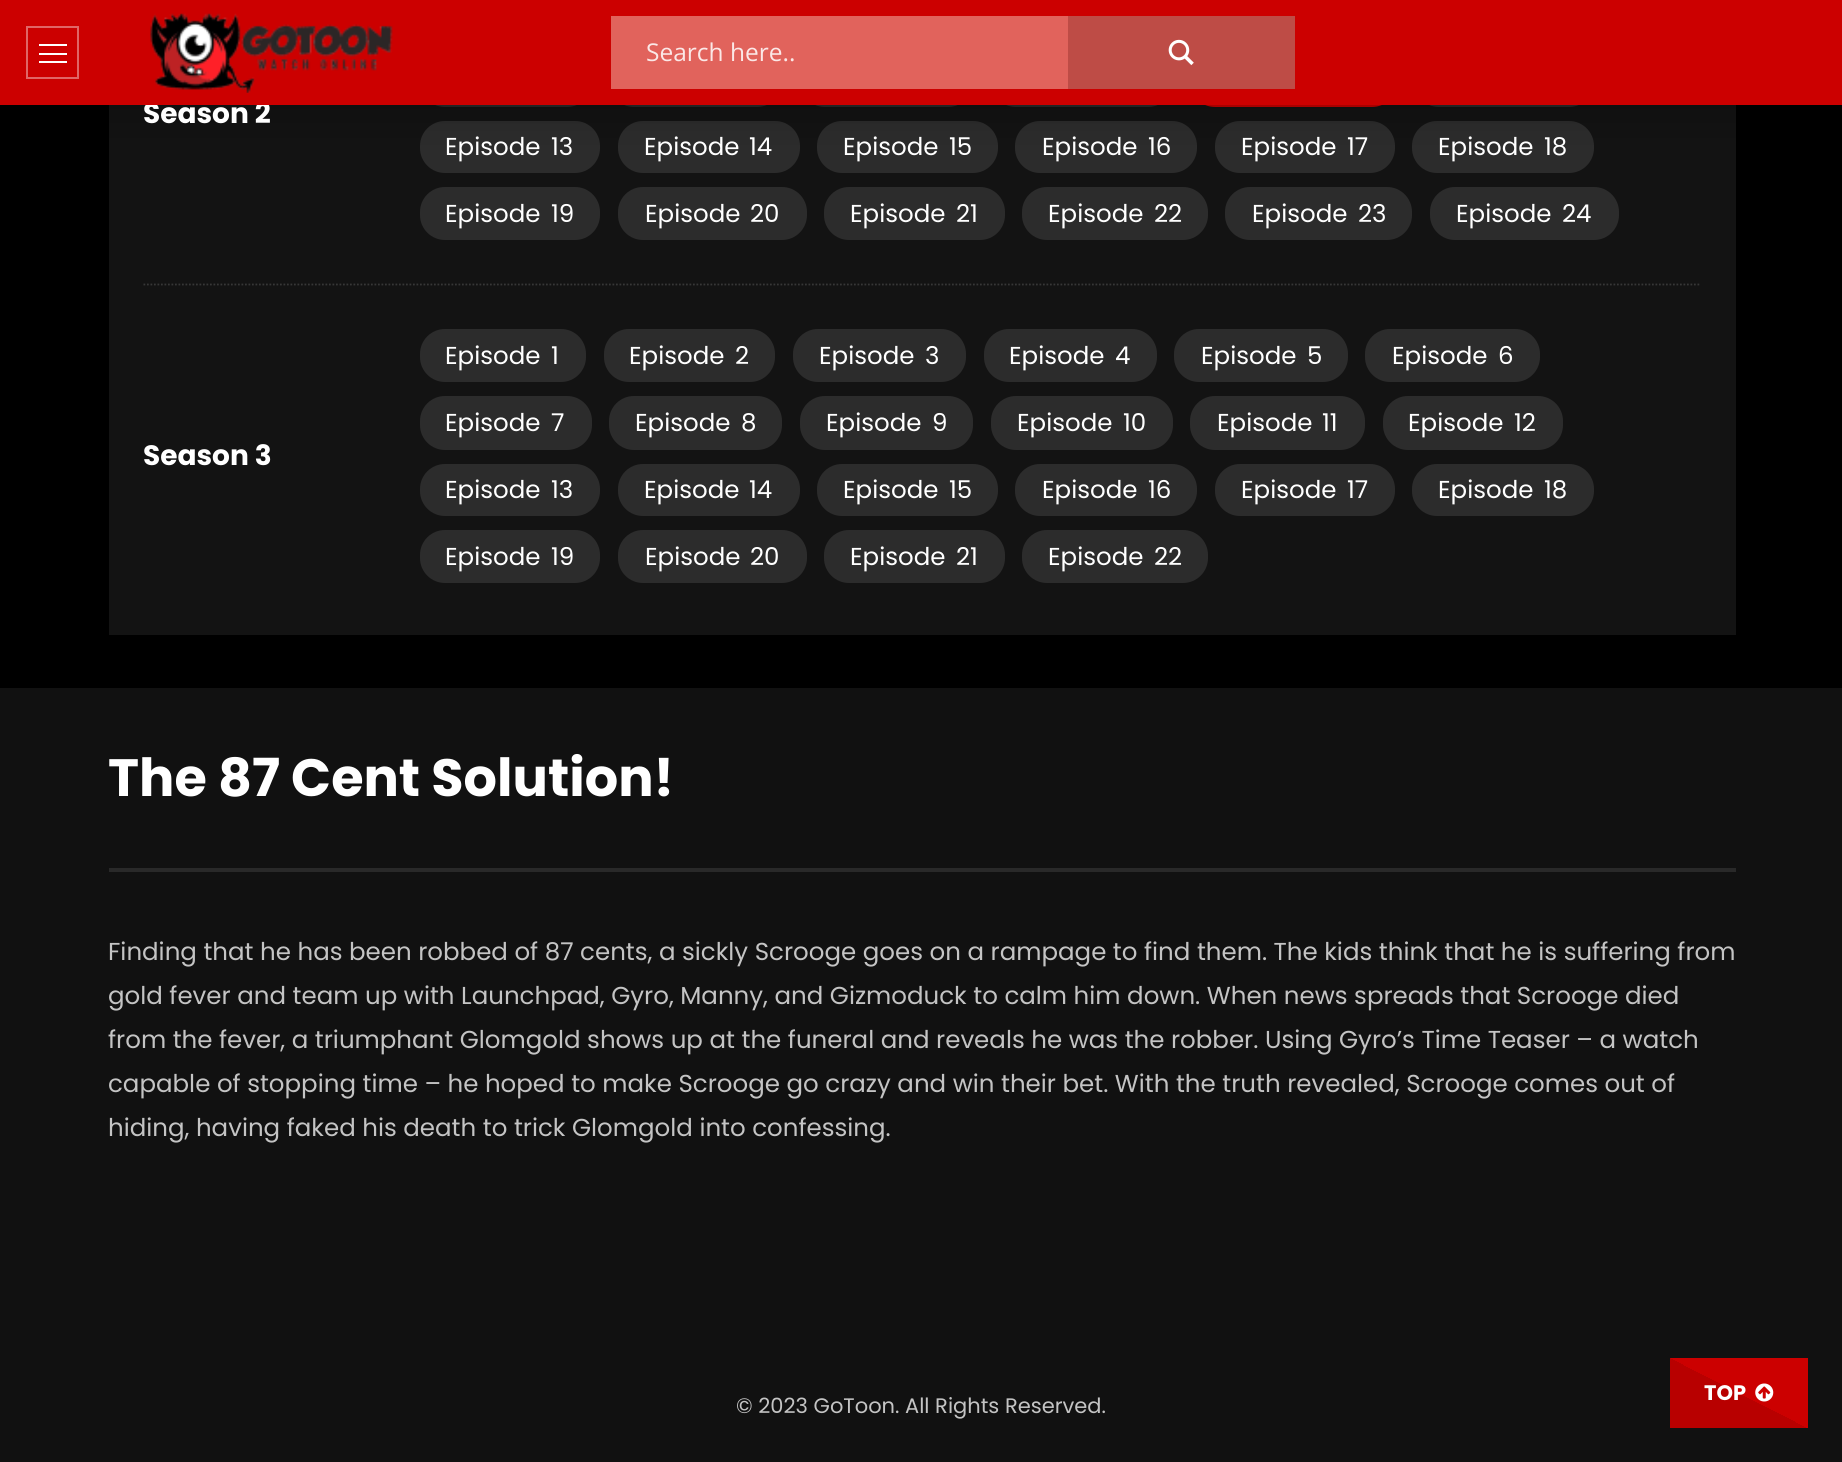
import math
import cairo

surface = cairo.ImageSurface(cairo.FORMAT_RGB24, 1842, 1462)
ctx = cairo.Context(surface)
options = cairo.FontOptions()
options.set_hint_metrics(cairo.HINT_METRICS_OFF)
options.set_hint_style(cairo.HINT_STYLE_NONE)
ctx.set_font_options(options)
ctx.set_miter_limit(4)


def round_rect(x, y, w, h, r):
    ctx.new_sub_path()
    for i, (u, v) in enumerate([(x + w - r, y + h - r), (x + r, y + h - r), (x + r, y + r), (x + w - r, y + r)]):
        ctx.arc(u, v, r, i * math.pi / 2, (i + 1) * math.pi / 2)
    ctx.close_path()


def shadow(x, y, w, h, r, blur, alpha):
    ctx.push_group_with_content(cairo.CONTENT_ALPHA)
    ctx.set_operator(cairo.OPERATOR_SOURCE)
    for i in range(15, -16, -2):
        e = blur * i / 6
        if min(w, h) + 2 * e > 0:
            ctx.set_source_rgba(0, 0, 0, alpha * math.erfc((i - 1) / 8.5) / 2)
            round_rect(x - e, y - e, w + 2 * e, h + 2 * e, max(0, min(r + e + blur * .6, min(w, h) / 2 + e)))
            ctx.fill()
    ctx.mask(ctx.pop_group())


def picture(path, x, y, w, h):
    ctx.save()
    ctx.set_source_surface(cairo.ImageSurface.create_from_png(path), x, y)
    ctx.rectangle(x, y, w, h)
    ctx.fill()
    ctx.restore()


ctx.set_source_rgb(0.067, 0.067, 0.067)
ctx.paint()
ctx.set_source_rgb(0, 0, 0)
ctx.rectangle(0, 105, 1842, 583)
ctx.fill()
ctx.set_source_rgb(0.078, 0.078, 0.078)
ctx.rectangle(109, 105, 1627, 530)
ctx.fill()
ctx.set_source_rgb(0.173, 0.173, 0.173)
round_rect(420, 54, 172, 53, 25)
ctx.fill()
round_rect(609, 54, 173, 53, 25)
ctx.fill()
round_rect(800, 54, 173, 53, 25)
ctx.fill()
round_rect(991, 54, 182, 53, 25)
ctx.fill()
ctx.set_source_rgb(0.8, 0, 0)
round_rect(1190, 54, 207, 53, 25)
ctx.fill()
ctx.set_source_rgb(0.173, 0.173, 0.173)
round_rect(1414, 54, 180, 53, 25)
ctx.fill()
round_rect(420, 121, 180, 52, 25)
ctx.fill()
round_rect(618, 121, 182, 52, 25)
ctx.fill()
round_rect(817, 121, 181, 52, 25)
ctx.fill()
round_rect(1015, 121, 182, 52, 25)
ctx.fill()
round_rect(1215, 121, 180, 52, 25)
ctx.fill()
round_rect(1412, 121, 182, 52, 25)
ctx.fill()
ctx.set_source_rgb(0, 0, 0)
shadow(0, 0, 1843, 105, 0, 22, 0.35)
ctx.select_font_face("Poppins", cairo.FONT_SLANT_NORMAL, cairo.FONT_WEIGHT_BOLD)
ctx.set_font_size(28)
ctx.set_source_rgb(1, 1, 1)
ctx.move_to(143, 123)
ctx.show_text("Season 2")
ctx.set_source_rgb(0.8, 0, 0)
ctx.rectangle(0, 0, 1842, 105)
ctx.fill()
ctx.rectangle(27, 27, 51, 51)
ctx.set_source_rgb(0.878, 0.4, 0.4)
ctx.stroke()
ctx.set_source_rgb(1, 1, 1)
ctx.rectangle(39, 44, 28, 2)
ctx.fill()
ctx.rectangle(39, 53, 28, 2)
ctx.fill()
ctx.rectangle(39, 61, 28, 2)
ctx.fill()
picture("img1.png", 150, 13, 243, 80)
ctx.set_source_rgb(0.882, 0.388, 0.361)
ctx.rectangle(611, 16, 457, 73)
ctx.fill()
ctx.select_font_face("Open Sans")
ctx.set_font_size(24.5)
ctx.set_source_rgb(0.984, 0.91, 0.906)
ctx.move_to(646, 61)
ctx.show_text("Search here..")
ctx.set_source_rgb(0.745, 0.298, 0.275)
ctx.rectangle(1068, 16, 227, 73)
ctx.fill()
picture("img2.png", 1168, 39, 26, 27)
ctx.select_font_face("Poppins")
ctx.set_source_rgb(1, 1, 1)
ctx.move_to(445, 155)
ctx.show_text("Episode")
ctx.move_to(551, 155)
ctx.show_text("13")
ctx.move_to(644, 155)
ctx.show_text("Episode")
ctx.move_to(749, 155)
ctx.show_text("14")
ctx.move_to(843, 155)
ctx.show_text("Episode")
ctx.move_to(949, 155)
ctx.show_text("15")
ctx.move_to(1042, 155)
ctx.show_text("Episode")
ctx.move_to(1148, 155)
ctx.show_text("16")
ctx.move_to(1241, 155)
ctx.show_text("Episode")
ctx.move_to(1347, 155)
ctx.show_text("17")
ctx.move_to(1438, 155)
ctx.show_text("Episode")
ctx.move_to(1544, 155)
ctx.show_text("18")
ctx.set_source_rgb(0.173, 0.173, 0.173)
round_rect(420, 187, 180, 53, 25)
ctx.fill()
ctx.set_source_rgb(1, 1, 1)
ctx.move_to(445, 222)
ctx.show_text("Episode")
ctx.move_to(551, 222)
ctx.show_text("19")
ctx.set_source_rgb(0.173, 0.173, 0.173)
round_rect(618, 187, 189, 53, 25)
ctx.fill()
ctx.set_source_rgb(1, 1, 1)
ctx.move_to(645, 222)
ctx.show_text("Episode")
ctx.move_to(750, 222)
ctx.show_text("20")
ctx.set_source_rgb(0.173, 0.173, 0.173)
round_rect(824, 187, 181, 53, 25)
ctx.fill()
ctx.set_source_rgb(1, 1, 1)
ctx.move_to(850, 222)
ctx.show_text("Episode")
ctx.move_to(956, 222)
ctx.show_text("21")
ctx.set_source_rgb(0.173, 0.173, 0.173)
round_rect(1022, 187, 186, 53, 25)
ctx.fill()
ctx.set_source_rgb(1, 1, 1)
ctx.move_to(1048, 222)
ctx.show_text("Episode")
ctx.move_to(1154, 222)
ctx.show_text("22")
ctx.set_source_rgb(0.173, 0.173, 0.173)
round_rect(1225, 187, 187, 53, 25)
ctx.fill()
ctx.set_source_rgb(1, 1, 1)
ctx.move_to(1252, 222)
ctx.show_text("Episode")
ctx.move_to(1358, 222)
ctx.show_text("23")
ctx.set_source_rgb(0.173, 0.173, 0.173)
round_rect(1430, 187, 189, 53, 25)
ctx.fill()
ctx.set_source_rgb(1, 1, 1)
ctx.move_to(1456, 222)
ctx.show_text("Episode")
ctx.move_to(1562, 222)
ctx.show_text("24")
ctx.new_path()
ctx.move_to(143.5, 284.5)
ctx.line_to(1701, 284.5)
ctx.set_source_rgb(0.216, 0.216, 0.216)
ctx.set_line_width(1.8)
ctx.set_dash([1.75, 1.75])
ctx.stroke()
ctx.select_font_face("Poppins", cairo.FONT_SLANT_NORMAL, cairo.FONT_WEIGHT_BOLD)
ctx.set_font_size(28)
ctx.set_source_rgb(1, 1, 1)
ctx.move_to(143, 465)
ctx.show_text("Season 3")
ctx.set_source_rgb(0.173, 0.173, 0.173)
round_rect(420, 329, 166, 53, 25)
ctx.fill()
ctx.select_font_face("Poppins")
ctx.set_font_size(24.5)
ctx.set_source_rgb(1, 1, 1)
ctx.move_to(445, 364)
ctx.show_text("Episode")
ctx.move_to(551, 364)
ctx.show_text("1")
ctx.set_source_rgb(0.173, 0.173, 0.173)
round_rect(604, 329, 171, 53, 25)
ctx.fill()
ctx.set_source_rgb(1, 1, 1)
ctx.move_to(629, 364)
ctx.show_text("Episode")
ctx.move_to(735, 364)
ctx.show_text("2")
ctx.set_source_rgb(0.173, 0.173, 0.173)
round_rect(793, 329, 173, 53, 25)
ctx.fill()
ctx.set_source_rgb(1, 1, 1)
ctx.move_to(819, 364)
ctx.show_text("Episode")
ctx.move_to(925, 364)
ctx.show_text("3")
ctx.set_source_rgb(0.173, 0.173, 0.173)
round_rect(984, 329, 173, 53, 25)
ctx.fill()
ctx.set_source_rgb(1, 1, 1)
ctx.move_to(1009, 364)
ctx.show_text("Episode")
ctx.move_to(1115, 364)
ctx.show_text("4")
ctx.set_source_rgb(0.173, 0.173, 0.173)
round_rect(1174, 329, 174, 53, 25)
ctx.fill()
ctx.set_source_rgb(1, 1, 1)
ctx.move_to(1201, 364)
ctx.show_text("Episode")
ctx.move_to(1307, 364)
ctx.show_text("5")
ctx.set_source_rgb(0.173, 0.173, 0.173)
round_rect(1365, 329, 175, 53, 25)
ctx.fill()
ctx.set_source_rgb(1, 1, 1)
ctx.move_to(1392, 364)
ctx.show_text("Episode")
ctx.move_to(1498, 364)
ctx.show_text("6")
ctx.set_source_rgb(0.173, 0.173, 0.173)
round_rect(420, 396, 172, 54, 25)
ctx.fill()
ctx.set_source_rgb(1, 1, 1)
ctx.move_to(445, 431)
ctx.show_text("Episode")
ctx.move_to(551, 431)
ctx.show_text("7")
ctx.set_source_rgb(0.173, 0.173, 0.173)
round_rect(609, 396, 173, 54, 25)
ctx.fill()
ctx.set_source_rgb(1, 1, 1)
ctx.move_to(635, 431)
ctx.show_text("Episode")
ctx.move_to(741, 431)
ctx.show_text("8")
ctx.set_source_rgb(0.173, 0.173, 0.173)
round_rect(800, 396, 173, 54, 25)
ctx.fill()
ctx.set_source_rgb(1, 1, 1)
ctx.move_to(826, 431)
ctx.show_text("Episode")
ctx.move_to(932, 431)
ctx.show_text("9")
ctx.set_source_rgb(0.173, 0.173, 0.173)
round_rect(991, 396, 182, 54, 25)
ctx.fill()
ctx.set_source_rgb(1, 1, 1)
ctx.move_to(1017, 431)
ctx.show_text("Episode")
ctx.move_to(1123, 431)
ctx.show_text("10")
ctx.set_source_rgb(0.173, 0.173, 0.173)
round_rect(1190, 396, 175, 54, 25)
ctx.fill()
ctx.set_source_rgb(1, 1, 1)
ctx.move_to(1217, 431)
ctx.show_text("Episode")
ctx.move_to(1322, 431)
ctx.show_text("11")
ctx.set_source_rgb(0.173, 0.173, 0.173)
round_rect(1383, 396, 180, 54, 25)
ctx.fill()
ctx.set_source_rgb(1, 1, 1)
ctx.move_to(1408, 431)
ctx.show_text("Episode")
ctx.move_to(1514, 431)
ctx.show_text("12")
ctx.set_source_rgb(0.173, 0.173, 0.173)
round_rect(420, 464, 180, 52, 25)
ctx.fill()
ctx.set_source_rgb(1, 1, 1)
ctx.move_to(445, 498)
ctx.show_text("Episode")
ctx.move_to(551, 498)
ctx.show_text("13")
ctx.set_source_rgb(0.173, 0.173, 0.173)
round_rect(618, 464, 182, 52, 25)
ctx.fill()
ctx.set_source_rgb(1, 1, 1)
ctx.move_to(644, 498)
ctx.show_text("Episode")
ctx.move_to(749, 498)
ctx.show_text("14")
ctx.set_source_rgb(0.173, 0.173, 0.173)
round_rect(817, 464, 181, 52, 25)
ctx.fill()
ctx.set_source_rgb(1, 1, 1)
ctx.move_to(843, 498)
ctx.show_text("Episode")
ctx.move_to(949, 498)
ctx.show_text("15")
ctx.set_source_rgb(0.173, 0.173, 0.173)
round_rect(1015, 464, 182, 52, 25)
ctx.fill()
ctx.set_source_rgb(1, 1, 1)
ctx.move_to(1042, 498)
ctx.show_text("Episode")
ctx.move_to(1148, 498)
ctx.show_text("16")
ctx.set_source_rgb(0.173, 0.173, 0.173)
round_rect(1215, 464, 180, 52, 25)
ctx.fill()
ctx.set_source_rgb(1, 1, 1)
ctx.move_to(1241, 498)
ctx.show_text("Episode")
ctx.move_to(1347, 498)
ctx.show_text("17")
ctx.set_source_rgb(0.173, 0.173, 0.173)
round_rect(1412, 464, 182, 52, 25)
ctx.fill()
ctx.set_source_rgb(1, 1, 1)
ctx.move_to(1438, 498)
ctx.show_text("Episode")
ctx.move_to(1544, 498)
ctx.show_text("18")
ctx.set_source_rgb(0.173, 0.173, 0.173)
round_rect(420, 530, 180, 53, 25)
ctx.fill()
ctx.set_source_rgb(1, 1, 1)
ctx.move_to(445, 565)
ctx.show_text("Episode")
ctx.move_to(551, 565)
ctx.show_text("19")
ctx.set_source_rgb(0.173, 0.173, 0.173)
round_rect(618, 530, 189, 53, 25)
ctx.fill()
ctx.set_source_rgb(1, 1, 1)
ctx.move_to(645, 565)
ctx.show_text("Episode")
ctx.move_to(750, 565)
ctx.show_text("20")
ctx.set_source_rgb(0.173, 0.173, 0.173)
round_rect(824, 530, 181, 53, 25)
ctx.fill()
ctx.set_source_rgb(1, 1, 1)
ctx.move_to(850, 565)
ctx.show_text("Episode")
ctx.move_to(956, 565)
ctx.show_text("21")
ctx.set_source_rgb(0.173, 0.173, 0.173)
round_rect(1022, 530, 186, 53, 25)
ctx.fill()
ctx.set_source_rgb(1, 1, 1)
ctx.move_to(1048, 565)
ctx.show_text("Episode")
ctx.move_to(1154, 565)
ctx.show_text("22")
ctx.set_source_rgb(0.161, 0.161, 0.161)
ctx.rectangle(109, 868, 1627, 4)
ctx.fill()
ctx.select_font_face("Poppins", cairo.FONT_SLANT_NORMAL, cairo.FONT_WEIGHT_BOLD)
ctx.set_font_size(52.5)
ctx.set_source_rgb(1, 1, 1)
ctx.move_to(108, 796)
ctx.show_text("The 87 Cent Solution!")
ctx.select_font_face("Poppins")
ctx.set_font_size(24.5)
ctx.set_source_rgb(0.769, 0.769, 0.769)
ctx.move_to(108, 960)
ctx.show_text("Finding that he has been robbed of 87 cents, a sickly Scrooge goes on a rampage to find them. The kids think that he is suffering from")
ctx.move_to(108, 1004)
ctx.show_text("gold fever and team up with Launchpad, Gyro, Manny, and Gizmoduck to calm him down. When news spreads that Scrooge died")
ctx.move_to(108, 1048)
ctx.show_text("from the fever, a triumphant Glomgold shows up at the funeral and reveals he was the robber. Using Gyro’s Time Teaser – a watch")
ctx.move_to(108, 1092)
ctx.show_text("capable of stopping time – he hoped to make Scrooge go crazy and win their bet. With the truth revealed, Scrooge comes out of")
ctx.move_to(108, 1136)
ctx.show_text("hiding, having faked his death to trick Glomgold into confessing.")
ctx.set_font_size(21)
ctx.move_to(736, 1413)
ctx.show_text("© 2023 GoToon. All Rights Reserved.")
gradient = cairo.LinearGradient(1767, 1337, 1710, 1449)
gradient.add_color_stop_rgba(0.5, 0.8, 0, 0, 1)
gradient.add_color_stop_rgba(0.5, 0.722, 0, 0, 1)
ctx.set_source(gradient)
ctx.rectangle(1670, 1358, 138, 70)
ctx.fill()
ctx.select_font_face("Poppins", cairo.FONT_SLANT_NORMAL, cairo.FONT_WEIGHT_BOLD)
ctx.set_source_rgb(1, 1, 1)
ctx.move_to(1704, 1400)
ctx.show_text("TOP")
picture("img3.png", 1755, 1383, 19, 19)
surface.write_to_png("page.png")
